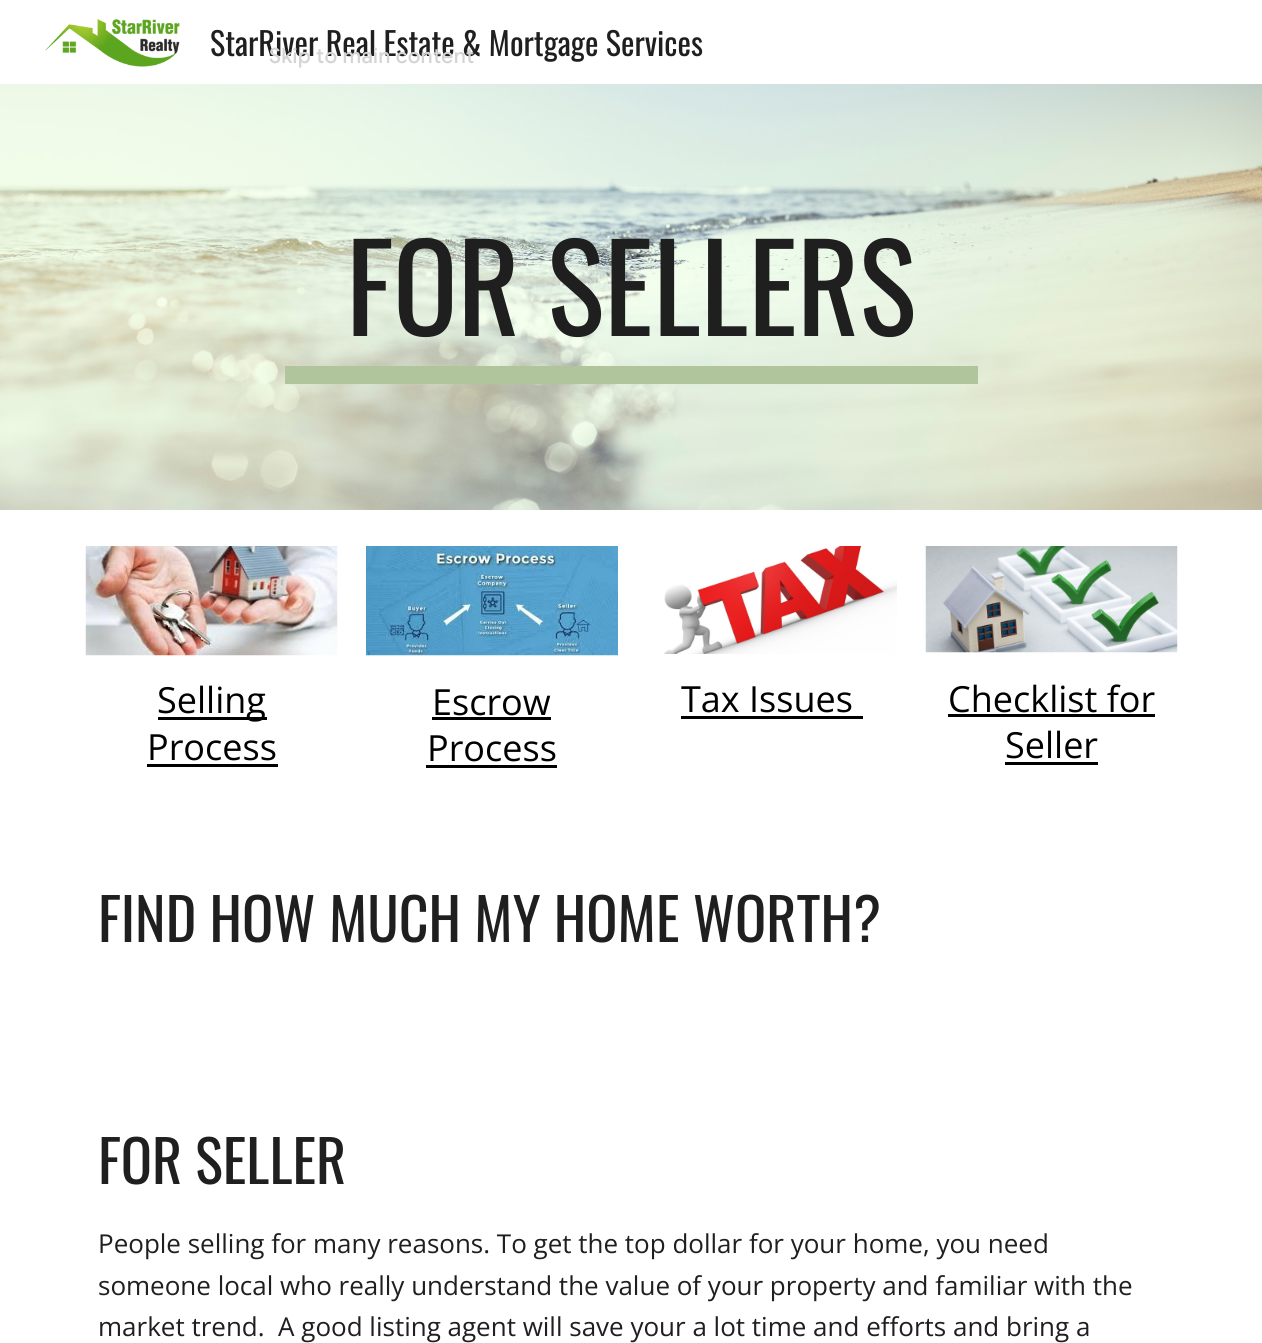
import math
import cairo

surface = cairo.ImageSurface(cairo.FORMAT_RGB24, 1262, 1343)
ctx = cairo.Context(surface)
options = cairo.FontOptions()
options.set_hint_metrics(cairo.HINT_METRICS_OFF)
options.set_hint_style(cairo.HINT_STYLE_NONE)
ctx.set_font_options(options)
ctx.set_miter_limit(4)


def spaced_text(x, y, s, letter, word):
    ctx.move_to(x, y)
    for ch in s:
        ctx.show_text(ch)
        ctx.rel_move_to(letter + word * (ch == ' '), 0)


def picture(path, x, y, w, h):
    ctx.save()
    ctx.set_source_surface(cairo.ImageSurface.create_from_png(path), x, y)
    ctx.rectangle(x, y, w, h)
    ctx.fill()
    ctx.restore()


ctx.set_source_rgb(1, 1, 1)
ctx.paint()
picture("img1.png", 45, 19, 135, 48)
ctx.select_font_face("Oswald")
ctx.set_font_size(32)
ctx.set_source_rgb(0.122, 0.122, 0.122)
ctx.move_to(210, 56)
ctx.show_text("StarRiver Real Estate & Mortgage Services")
picture("img2.png", 0, 84, 1262, 426)
ctx.set_font_size(120)
ctx.move_to(346, 336)
ctx.show_text("FOR SELLERS")
ctx.set_source_rgb(0.694, 0.773, 0.616)
ctx.rectangle(285, 366, 693, 18)
ctx.fill()
picture("img3.png", 85, 546, 253, 110)
ctx.set_source_rgb(0, 0, 0)
ctx.rectangle(158, 717, 109, 3)
ctx.fill()
ctx.select_font_face("Open Sans")
ctx.set_font_size(36)
ctx.move_to(157, 713)
ctx.show_text("Selling")
ctx.move_to(147, 760)
ctx.show_text("Process")
ctx.rectangle(147, 764, 131, 3)
ctx.fill()
picture("img4.png", 366, 546, 252, 110)
ctx.move_to(432, 715)
ctx.show_text("Escrow")
ctx.rectangle(432, 717, 119, 3)
ctx.fill()
ctx.move_to(427, 761)
ctx.show_text("Process")
ctx.rectangle(426, 765, 131, 3)
ctx.fill()
picture("img5.png", 664, 546, 233, 108)
ctx.move_to(681, 712)
ctx.show_text("Tax Issues")
ctx.rectangle(681, 716, 182, 3)
ctx.fill()
picture("img6.png", 925, 546, 253, 107)
ctx.move_to(948, 712)
ctx.show_text("Checklist for")
ctx.rectangle(948, 714, 207, 3)
ctx.fill()
ctx.move_to(1005, 758)
ctx.show_text("Seller")
ctx.rectangle(1005, 762, 93, 3)
ctx.fill()
ctx.select_font_face("Oswald")
ctx.set_font_size(58)
ctx.set_source_rgb(0.122, 0.122, 0.122)
ctx.move_to(98, 942)
ctx.show_text("FIND HOW MUCH MY HOME WORTH?")
ctx.move_to(98, 1184)
ctx.show_text("FOR SELLER")
ctx.select_font_face("Open Sans")
ctx.set_font_size(26)
ctx.move_to(98, 1253)
ctx.show_text("People selling for many reasons. To get the top dollar for your home, you need")
ctx.move_to(98, 1295)
ctx.show_text("someone local who really understand the value of your property and familiar with the")
ctx.move_to(98, 1336)
ctx.show_text("market trend.  A good listing agent will save your a lot time and efforts and bring a")
ctx.select_font_face("Google Sans Medium")
ctx.set_font_size(21)
ctx.set_source_rgb(0.831, 0.831, 0.831)
spaced_text(269, 63, "Skip to main content", 0.25, 0)
surface.write_to_png("page.png")
